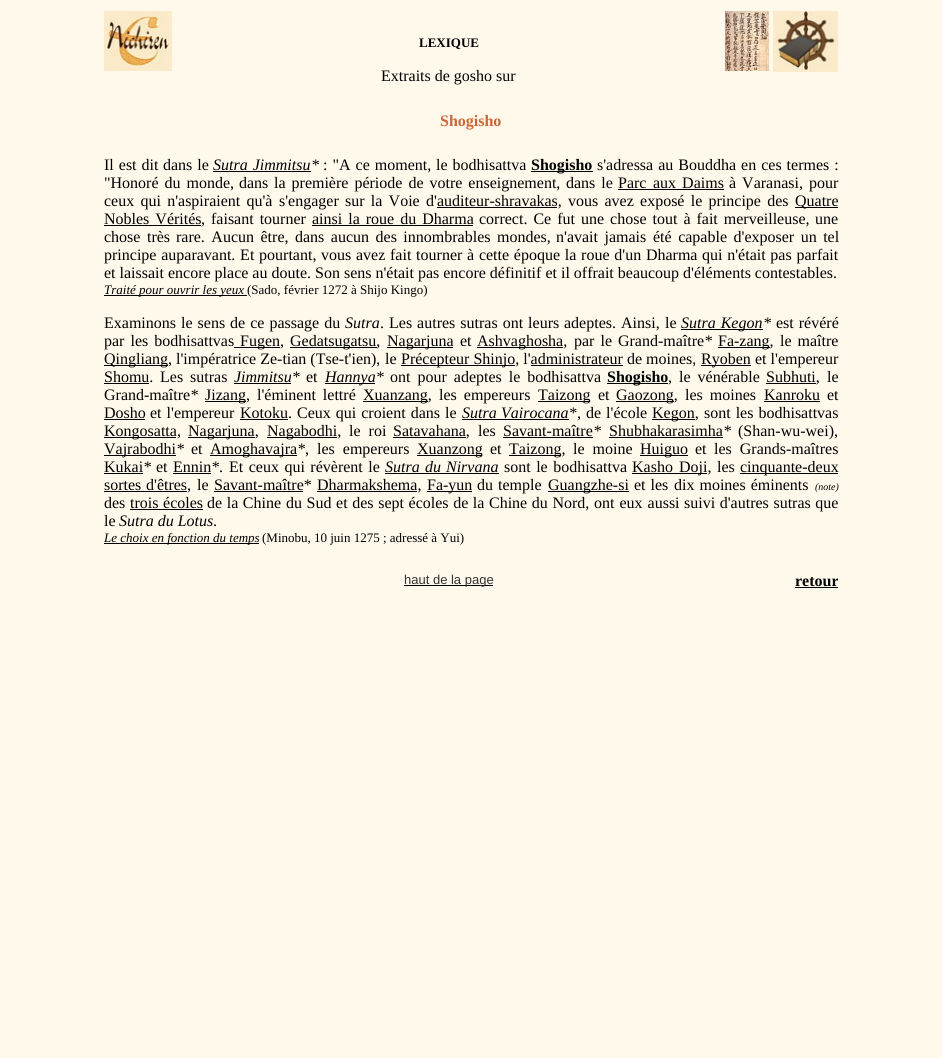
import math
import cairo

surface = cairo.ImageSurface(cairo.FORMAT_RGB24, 942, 1058)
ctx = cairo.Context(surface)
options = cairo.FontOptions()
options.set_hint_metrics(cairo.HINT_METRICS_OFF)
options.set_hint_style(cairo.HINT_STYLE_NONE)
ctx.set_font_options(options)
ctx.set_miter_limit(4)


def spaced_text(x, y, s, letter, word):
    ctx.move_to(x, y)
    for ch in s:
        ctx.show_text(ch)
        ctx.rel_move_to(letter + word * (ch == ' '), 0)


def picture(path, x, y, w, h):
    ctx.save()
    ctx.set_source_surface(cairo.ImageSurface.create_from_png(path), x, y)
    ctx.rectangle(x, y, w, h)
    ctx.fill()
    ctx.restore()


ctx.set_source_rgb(1, 0.973, 0.925)
ctx.paint()
picture("img1.png", 104, 11, 68, 60)
ctx.select_font_face("Liberation Serif", cairo.FONT_SLANT_NORMAL, cairo.FONT_WEIGHT_BOLD)
ctx.set_font_size(13)
ctx.set_source_rgb(0, 0, 0)
ctx.move_to(419, 47)
ctx.show_text("LEXIQUE")
ctx.select_font_face("Liberation Serif")
ctx.set_font_size(16)
ctx.move_to(381, 81)
ctx.show_text("Extraits de gosho sur")
picture("img2.png", 725, 11, 44, 60)
picture("img3.png", 773, 11, 65, 61)
ctx.select_font_face("Liberation Serif", cairo.FONT_SLANT_NORMAL, cairo.FONT_WEIGHT_BOLD)
ctx.set_source_rgb(0.8, 0.4, 0.2)
ctx.move_to(440, 126)
ctx.show_text("Shogisho")
ctx.select_font_face("Liberation Serif")
ctx.set_source_rgb(0, 0, 0)
spaced_text(104, 170, "Il est dit", 0, 1)
spaced_text(163, 170, "dans le", 0, 1)
ctx.select_font_face("Liberation Serif", cairo.FONT_SLANT_ITALIC)
spaced_text(213, 170, "Sutra Jimmitsu", 0, 1)
ctx.rectangle(213, 171, 98, 1)
ctx.fill()
ctx.move_to(311, 170)
ctx.show_text("*")
ctx.select_font_face("Liberation Serif")
spaced_text(323, 170, ": \"A ce moment,", 0, 1)
spaced_text(436, 170, "le bodhisattva", 0, 1)
ctx.rectangle(531, 171, 62, 1)
ctx.fill()
ctx.select_font_face("Liberation Serif", cairo.FONT_SLANT_NORMAL, cairo.FONT_WEIGHT_BOLD)
ctx.move_to(531, 170)
ctx.show_text("Shogisho")
ctx.select_font_face("Liberation Serif")
spaced_text(597, 170, "s'adressa au Bouddha en ces termes :", 0, 1)
spaced_text(104, 188, "\"Honoré du monde,", 0, 2)
ctx.move_to(239, 188)
ctx.show_text("dans")
spaced_text(274, 188, "la première période de votre enseignement,", 0, 2)
spaced_text(566, 188, "dans le", 0, 2)
ctx.move_to(618, 188)
ctx.show_text("Parc")
ctx.rectangle(618, 189, 106, 1)
ctx.fill()
spaced_text(653, 188, "aux Daims", 0, 2)
spaced_text(729, 188, "à Varanasi,", 0, 2)
ctx.move_to(809, 188)
ctx.show_text("pour")
spaced_text(104, 206, "ceux qui n'aspiraient qu'à", 0, 2.25)
spaced_text(279, 206, "s'engager sur la Voie d'", 0, 2.25)
ctx.rectangle(437, 207, 120, 1)
ctx.fill()
ctx.move_to(437, 206)
ctx.show_text("auditeur-shravakas,")
spaced_text(568, 206, "vous avez exposé le principe des", 0, 2.25)
ctx.rectangle(795, 207, 43, 1)
ctx.fill()
ctx.move_to(795, 206)
ctx.show_text("Quatre")
spaced_text(104, 224, "Nobles Vérités", 0, 2)
ctx.rectangle(104, 225, 97, 1)
ctx.fill()
ctx.move_to(201, 224)
ctx.show_text(",")
spaced_text(211, 224, "faisant tourner", 0, 2)
spaced_text(312, 224, "ainsi la roue du Dharma", 0, 2)
ctx.rectangle(312, 225, 161, 1)
ctx.fill()
spaced_text(479, 224, "correct. Ce fut une chose tout à fait merveilleuse,", 0, 2)
ctx.move_to(815, 224)
ctx.show_text("une")
spaced_text(104, 242, "chose très", 0, 2.5)
spaced_text(176, 242, "rare. Aucun être,", 0, 2.5)
spaced_text(295, 242, "dans aucun des innombrables mondes,", 0, 2.5)
spaced_text(556, 242, "n'avait jamais", 0, 2.5)
spaced_text(653, 242, "été capable d'exposer un tel", 0, 2.5)
spaced_text(104, 260, "principe auparavant. Et pourtant,", 0, 0.75)
spaced_text(321, 260, "vous avez fait tourner à cette époque la roue d'un Dharma", 0, 0.75)
spaced_text(702, 260, "qui n'était pas parfait", 0, 0.75)
ctx.move_to(104, 278)
ctx.show_text("et laissait encore place au doute. Son sens n'était pas encore définitif et il offrait beaucoup d'éléments contestables.")
ctx.rectangle(104, 295, 143, 1)
ctx.fill()
ctx.select_font_face("Liberation Serif", cairo.FONT_SLANT_ITALIC)
ctx.set_font_size(13)
ctx.move_to(104, 294)
ctx.show_text("Traité pour ouvrir les yeux")
ctx.select_font_face("Liberation Serif")
ctx.move_to(247, 294)
ctx.show_text("(Sado, février 1272 à Shijo Kingo)")
ctx.set_font_size(16)
ctx.move_to(104, 328)
ctx.show_text("Examinons")
spaced_text(181, 328, "le sens de ce passage du", 0, 1)
ctx.select_font_face("Liberation Serif", cairo.FONT_SLANT_ITALIC)
ctx.move_to(345, 328)
ctx.show_text("Sutra")
ctx.select_font_face("Liberation Serif")
spaced_text(380, 328, ". Les autres sutras ont leurs", 0, 1)
spaced_text(564, 328, "adeptes. Ainsi,", 0, 1)
ctx.move_to(665, 328)
ctx.show_text("le")
ctx.rectangle(681, 329, 82, 1)
ctx.fill()
ctx.select_font_face("Liberation Serif", cairo.FONT_SLANT_ITALIC)
spaced_text(681, 328, "Sutra Kegon", 0, 1)
ctx.move_to(763, 328)
ctx.show_text("*")
ctx.select_font_face("Liberation Serif")
spaced_text(776, 328, "est révéré", 0, 1)
spaced_text(104, 346, "par les bodhisattvas", 0, 2)
ctx.rectangle(234, 347, 46, 1)
ctx.fill()
ctx.move_to(240, 346)
ctx.show_text("Fugen,")
ctx.rectangle(290, 347, 87, 1)
ctx.fill()
ctx.move_to(290, 346)
ctx.show_text("Gedatsugatsu,")
ctx.rectangle(387, 347, 66, 1)
ctx.fill()
ctx.move_to(387, 346)
ctx.show_text("Nagarjuna")
ctx.move_to(460, 346)
ctx.show_text("et")
ctx.rectangle(477, 347, 86, 1)
ctx.fill()
ctx.move_to(477, 346)
ctx.show_text("Ashvaghosha,")
spaced_text(574, 346, "par le Grand-maître", 0, 2)
ctx.select_font_face("Liberation Serif", cairo.FONT_SLANT_ITALIC)
ctx.move_to(704, 346)
ctx.show_text("*")
ctx.rectangle(718, 347, 52, 1)
ctx.fill()
ctx.select_font_face("Liberation Serif")
ctx.move_to(718, 346)
ctx.show_text("Fa-zang,")
spaced_text(780, 346, "le maître", 0, 2)
ctx.rectangle(104, 365, 64, 1)
ctx.fill()
ctx.move_to(104, 364)
ctx.show_text("Qingliang,")
ctx.move_to(176, 364)
ctx.show_text("l'impératrice Ze-tian (Tse-t'ien),")
ctx.move_to(385, 364)
ctx.show_text("le")
ctx.rectangle(401, 365, 114, 1)
ctx.fill()
ctx.move_to(401, 364)
ctx.show_text("Précepteur Shinjo, l'administrateur de moines,")
ctx.rectangle(701, 365, 50, 1)
ctx.fill()
ctx.move_to(701, 364)
ctx.show_text("Ryoben")
ctx.move_to(755, 364)
ctx.show_text("et l'empereur")
ctx.rectangle(531, 365, 92, 1)
ctx.fill()
ctx.move_to(104, 382)
ctx.show_text("Shomu.")
ctx.rectangle(104, 383, 45, 1)
ctx.fill()
spaced_text(160, 382, "Les sutras", 0, 3)
ctx.select_font_face("Liberation Serif", cairo.FONT_SLANT_ITALIC)
ctx.move_to(234, 382)
ctx.show_text("Jimmitsu*")
ctx.rectangle(234, 383, 57, 1)
ctx.fill()
ctx.select_font_face("Liberation Serif")
ctx.move_to(306, 382)
ctx.show_text("et")
ctx.rectangle(325, 383, 50, 1)
ctx.fill()
ctx.select_font_face("Liberation Serif", cairo.FONT_SLANT_ITALIC)
ctx.move_to(325, 382)
ctx.show_text("Hannya*")
ctx.select_font_face("Liberation Serif")
spaced_text(390, 382, "ont pour adeptes le bodhisattva", 0, 3)
ctx.rectangle(607, 383, 61, 1)
ctx.fill()
ctx.select_font_face("Liberation Serif", cairo.FONT_SLANT_NORMAL, cairo.FONT_WEIGHT_BOLD)
ctx.move_to(607, 382)
ctx.show_text("Shogisho")
ctx.select_font_face("Liberation Serif")
ctx.move_to(668, 382)
ctx.show_text(",")
spaced_text(679, 382, "le vénérable", 0, 3)
ctx.rectangle(766, 383, 50, 1)
ctx.fill()
ctx.move_to(766, 382)
ctx.show_text("Subhuti,")
ctx.move_to(827, 382)
ctx.show_text("le")
ctx.move_to(104, 400)
ctx.show_text("Grand-maître")
ctx.select_font_face("Liberation Serif", cairo.FONT_SLANT_ITALIC)
ctx.move_to(190, 400)
ctx.show_text("*")
ctx.rectangle(205, 401, 41, 1)
ctx.fill()
ctx.select_font_face("Liberation Serif")
ctx.move_to(205, 400)
ctx.show_text("Jizang,")
spaced_text(257, 400, "l'éminent lettré", 0, 3)
ctx.rectangle(363, 401, 65, 1)
ctx.fill()
ctx.move_to(363, 400)
ctx.show_text("Xuanzang,")
spaced_text(439, 400, "les empereurs", 0, 3)
ctx.rectangle(538, 401, 52, 1)
ctx.fill()
ctx.move_to(538, 400)
ctx.show_text("Taizong")
ctx.move_to(598, 400)
ctx.show_text("et")
ctx.rectangle(616, 401, 58, 1)
ctx.fill()
ctx.move_to(616, 400)
ctx.show_text("Gaozong,")
spaced_text(685, 400, "les moines", 0, 3)
ctx.move_to(764, 400)
ctx.show_text("Kanroku")
ctx.rectangle(764, 401, 56, 1)
ctx.fill()
ctx.move_to(827, 400)
ctx.show_text("et")
ctx.move_to(104, 418)
ctx.show_text("Dosho")
ctx.rectangle(104, 419, 41, 1)
ctx.fill()
spaced_text(150, 418, "et l'empereur", 0, 1)
ctx.move_to(240, 418)
ctx.show_text("Kotoku.")
ctx.rectangle(240, 419, 48, 1)
ctx.fill()
spaced_text(297, 418, "Ceux qui croient dans le", 0, 1)
ctx.select_font_face("Liberation Serif", cairo.FONT_SLANT_ITALIC)
ctx.move_to(462, 418)
ctx.show_text("Sutra")
ctx.rectangle(462, 419, 107, 1)
ctx.fill()
ctx.move_to(501, 418)
ctx.show_text("Vairocana*")
ctx.select_font_face("Liberation Serif")
ctx.move_to(577, 418)
ctx.show_text(",")
spaced_text(586, 418, "de l'école", 0, 1)
ctx.rectangle(652, 419, 43, 1)
ctx.fill()
ctx.move_to(652, 418)
ctx.show_text("Kegon,")
spaced_text(704, 418, "sont les bodhisattvas", 0, 1)
ctx.rectangle(104, 437, 72, 1)
ctx.fill()
ctx.move_to(104, 436)
ctx.show_text("Kongosatta,")
ctx.rectangle(188, 437, 67, 1)
ctx.fill()
ctx.move_to(188, 436)
ctx.show_text("Nagarjuna,")
ctx.rectangle(267, 437, 70, 1)
ctx.fill()
ctx.move_to(267, 436)
ctx.show_text("Nagabodhi,")
spaced_text(349, 436, "le roi", 0, 4)
ctx.rectangle(393, 437, 73, 1)
ctx.fill()
ctx.move_to(393, 436)
ctx.show_text("Satavahana,")
ctx.move_to(478, 436)
ctx.show_text("les")
ctx.move_to(503, 436)
ctx.show_text("Savant-maître")
ctx.rectangle(503, 437, 90, 1)
ctx.fill()
ctx.select_font_face("Liberation Serif", cairo.FONT_SLANT_ITALIC)
ctx.move_to(593, 436)
ctx.show_text("*")
ctx.select_font_face("Liberation Serif")
ctx.move_to(609, 436)
ctx.show_text("Shubhakarasimha")
ctx.rectangle(609, 437, 114, 1)
ctx.fill()
ctx.select_font_face("Liberation Serif", cairo.FONT_SLANT_ITALIC)
ctx.move_to(723, 436)
ctx.show_text("*")
ctx.select_font_face("Liberation Serif")
ctx.move_to(738, 436)
ctx.show_text("(Shan-wu-wei),")
ctx.rectangle(104, 455, 72, 1)
ctx.fill()
ctx.move_to(104, 454)
ctx.show_text("Vajrabodhi")
ctx.select_font_face("Liberation Serif", cairo.FONT_SLANT_ITALIC)
ctx.move_to(176, 454)
ctx.show_text("*")
ctx.select_font_face("Liberation Serif")
ctx.move_to(191, 454)
ctx.show_text("et")
ctx.rectangle(210, 455, 87, 1)
ctx.fill()
ctx.move_to(210, 454)
ctx.show_text("Amoghavajra")
ctx.select_font_face("Liberation Serif", cairo.FONT_SLANT_ITALIC)
ctx.move_to(297, 454)
ctx.show_text("*")
ctx.select_font_face("Liberation Serif")
ctx.move_to(305, 454)
ctx.show_text(",")
spaced_text(317, 454, "les empereurs", 0, 4)
ctx.rectangle(417, 455, 65, 1)
ctx.fill()
ctx.move_to(417, 454)
ctx.show_text("Xuanzong")
ctx.move_to(490, 454)
ctx.show_text("et")
ctx.rectangle(509, 455, 52, 1)
ctx.fill()
ctx.move_to(509, 454)
ctx.show_text("Taizong,")
spaced_text(573, 454, "le moine", 0, 4)
ctx.rectangle(640, 455, 48, 1)
ctx.fill()
ctx.move_to(640, 454)
ctx.show_text("Huiguo")
ctx.move_to(695, 454)
ctx.show_text("et")
spaced_text(714, 454, "les Grands-maîtres", 0, 4)
ctx.move_to(104, 472)
ctx.show_text("Kukai")
ctx.rectangle(104, 473, 39, 1)
ctx.fill()
ctx.select_font_face("Liberation Serif", cairo.FONT_SLANT_ITALIC)
ctx.move_to(143, 472)
ctx.show_text("*")
ctx.select_font_face("Liberation Serif")
ctx.move_to(156, 472)
ctx.show_text("et")
ctx.move_to(173, 472)
ctx.show_text("Ennin")
ctx.rectangle(173, 473, 38, 1)
ctx.fill()
ctx.select_font_face("Liberation Serif", cairo.FONT_SLANT_ITALIC)
ctx.move_to(211, 472)
ctx.show_text("*")
ctx.select_font_face("Liberation Serif")
ctx.move_to(219, 472)
ctx.show_text(".")
spaced_text(229, 472, "Et ceux qui révèrent le", 0, 1.5)
ctx.select_font_face("Liberation Serif", cairo.FONT_SLANT_ITALIC)
ctx.move_to(385, 472)
ctx.show_text("Sutra")
ctx.rectangle(385, 473, 114, 1)
ctx.fill()
spaced_text(425, 472, "du Nirvana", 0, 1)
ctx.select_font_face("Liberation Serif")
spaced_text(504, 472, "sont le bodhisattva", 0, 1.5)
ctx.move_to(632, 472)
ctx.show_text("Kasho")
ctx.rectangle(632, 473, 75, 1)
ctx.fill()
ctx.move_to(679, 472)
ctx.show_text("Doji,")
ctx.move_to(717, 472)
ctx.show_text("les")
ctx.rectangle(740, 473, 98, 1)
ctx.fill()
ctx.move_to(740, 472)
ctx.show_text("cinquante-deux")
ctx.move_to(104, 490)
ctx.show_text("sortes")
ctx.rectangle(104, 491, 83, 1)
ctx.fill()
ctx.move_to(146, 490)
ctx.show_text("d'êtres,")
ctx.move_to(197, 490)
ctx.show_text("le")
ctx.move_to(214, 490)
ctx.show_text("Savant-maître")
ctx.rectangle(214, 491, 89, 1)
ctx.fill()
ctx.select_font_face("Liberation Serif", cairo.FONT_SLANT_ITALIC)
ctx.move_to(303, 490)
ctx.show_text("*")
ctx.rectangle(317, 491, 100, 1)
ctx.fill()
ctx.select_font_face("Liberation Serif")
ctx.move_to(317, 490)
ctx.show_text("Dharmakshema,")
ctx.rectangle(427, 491, 45, 1)
ctx.fill()
ctx.move_to(427, 490)
ctx.show_text("Fa-yun")
spaced_text(477, 490, "du temple", 0, 1)
ctx.rectangle(548, 491, 81, 1)
ctx.fill()
ctx.move_to(548, 490)
ctx.show_text("Guangzhe-si")
spaced_text(634, 490, "et les", 0, 1)
spaced_text(674, 490, "dix moines éminents", 0, 1)
ctx.select_font_face("Liberation Serif", cairo.FONT_SLANT_ITALIC)
ctx.set_font_size(10)
ctx.move_to(815, 490)
ctx.show_text("(note)")
ctx.select_font_face("Liberation Serif")
ctx.set_font_size(16)
ctx.move_to(104, 508)
ctx.show_text("des")
spaced_text(130, 508, "trois écoles", 0, 0.6)
ctx.rectangle(130, 509, 73, 1)
ctx.fill()
spaced_text(207, 508, "de la Chine", 0, 0.6)
spaced_text(286, 508, "du Sud et des sept écoles de la Chine du Nord,", 0, 0.6)
spaced_text(594, 508, "ont eux aussi", 0, 1)
spaced_text(684, 508, "suivi d'autres sutras que", 0, 0.6)
ctx.move_to(104, 526)
ctx.show_text("le")
ctx.select_font_face("Liberation Serif", cairo.FONT_SLANT_ITALIC)
ctx.move_to(119, 526)
ctx.show_text("Sutra du Lotus")
ctx.select_font_face("Liberation Serif")
ctx.move_to(213, 526)
ctx.show_text(".")
ctx.rectangle(104, 543, 155, 1)
ctx.fill()
ctx.select_font_face("Liberation Serif", cairo.FONT_SLANT_ITALIC)
ctx.set_font_size(13)
ctx.move_to(104, 542)
ctx.show_text("Le choix en fonction du temps")
ctx.select_font_face("Liberation Serif")
ctx.move_to(262, 542)
ctx.show_text("(Minobu, 10 juin 1275 ; adressé à Yui)")
ctx.rectangle(404, 585, 89, 1)
ctx.fill()
ctx.select_font_face("Liberation Sans")
ctx.set_source_rgb(0.2, 0.2, 0.2)
ctx.move_to(404, 584)
ctx.show_text("haut de la page")
ctx.select_font_face("Liberation Serif", cairo.FONT_SLANT_NORMAL, cairo.FONT_WEIGHT_BOLD)
ctx.set_font_size(16)
ctx.set_source_rgb(0, 0, 0)
ctx.move_to(795, 586)
ctx.show_text("retour")
ctx.rectangle(795, 587, 43, 1)
ctx.fill()
surface.write_to_png("page.png")
